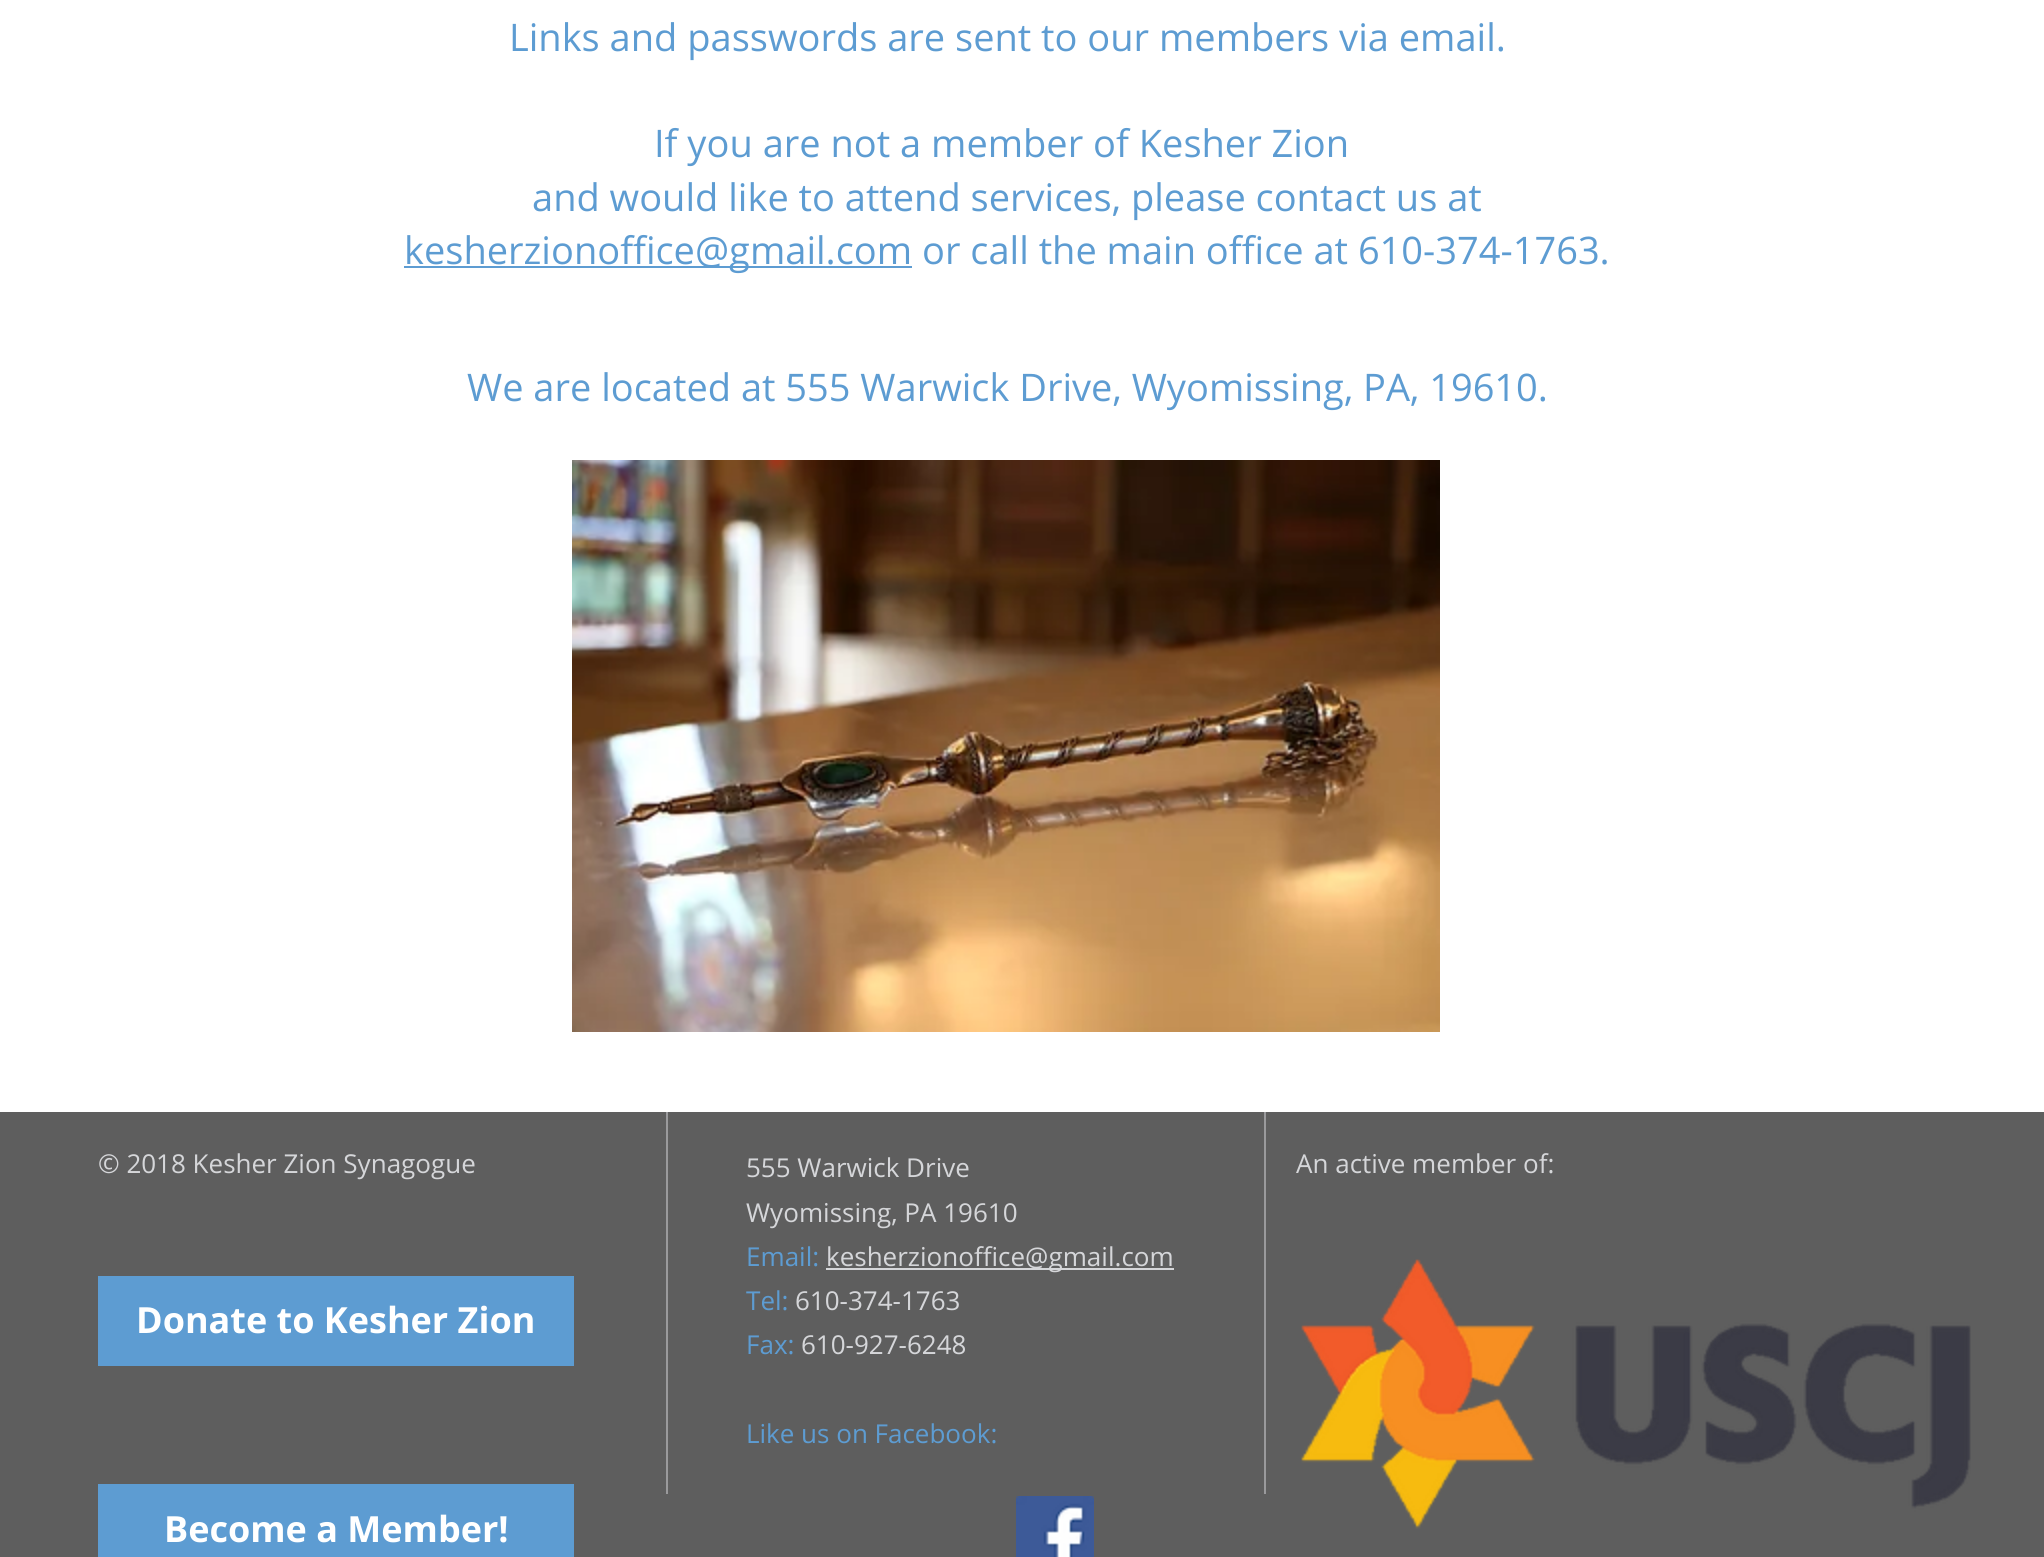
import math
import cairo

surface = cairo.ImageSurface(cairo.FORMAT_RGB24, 2044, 1557)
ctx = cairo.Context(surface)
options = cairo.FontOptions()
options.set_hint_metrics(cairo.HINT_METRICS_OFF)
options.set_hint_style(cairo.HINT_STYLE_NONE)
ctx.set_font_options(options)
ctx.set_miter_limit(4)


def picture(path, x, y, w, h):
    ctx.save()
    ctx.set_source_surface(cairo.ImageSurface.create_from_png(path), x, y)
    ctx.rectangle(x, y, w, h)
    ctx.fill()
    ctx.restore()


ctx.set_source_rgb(1, 1, 1)
ctx.paint()
ctx.select_font_face("Open Sans")
ctx.set_font_size(38)
ctx.set_source_rgb(0.365, 0.612, 0.824)
ctx.move_to(509, 51)
ctx.show_text("Links and passwords are sent to our members via email.")
ctx.move_to(654, 157)
ctx.show_text("If you are not a member of Kesher Zion")
ctx.move_to(532, 211)
ctx.show_text("and would like to attend services, please contact us at")
ctx.rectangle(404, 266, 508, 2)
ctx.fill()
ctx.move_to(404, 264)
ctx.show_text("kesherzionoffice@gmail.com or call the main office at 610-374-1763.")
ctx.move_to(467, 401)
ctx.show_text("We are located at 555 Warwick Drive, Wyomissing, PA, 19610.")
picture("img1.png", 572, 460, 868, 572)
ctx.set_source_rgb(0.369, 0.369, 0.369)
ctx.rectangle(0, 1112, 2044, 445)
ctx.fill()
ctx.set_font_size(26)
ctx.set_source_rgb(0.835, 0.839, 0.851)
ctx.move_to(98, 1173)
ctx.show_text("© 2018 Kesher Zion Synagogue")
ctx.set_source_rgb(0.604, 0.604, 0.612)
ctx.rectangle(666, 1112, 2, 382)
ctx.fill()
ctx.set_source_rgb(0.835, 0.839, 0.851)
ctx.move_to(746, 1177)
ctx.show_text("555 Warwick Drive")
ctx.move_to(746, 1222)
ctx.show_text("Wyomissing, PA 19610")
ctx.set_source_rgb(0.365, 0.612, 0.824)
ctx.move_to(746, 1266)
ctx.show_text("Email:")
ctx.set_source_rgb(0.835, 0.839, 0.851)
ctx.rectangle(826, 1268, 348, 2)
ctx.fill()
ctx.move_to(826, 1266)
ctx.show_text("kesherzionoffice@gmail.com")
ctx.set_source_rgb(0.365, 0.612, 0.824)
ctx.move_to(746, 1310)
ctx.show_text("Tel:")
ctx.set_source_rgb(0.835, 0.839, 0.851)
ctx.move_to(795, 1310)
ctx.show_text("610-374-1763")
ctx.set_source_rgb(0.365, 0.612, 0.824)
ctx.move_to(746, 1354)
ctx.show_text("Fax:")
ctx.set_source_rgb(0.835, 0.839, 0.851)
ctx.move_to(801, 1354)
ctx.show_text("610-927-6248")
ctx.set_source_rgb(0.365, 0.612, 0.824)
ctx.move_to(746, 1443)
ctx.show_text("Like us on Facebook:")
ctx.set_source_rgb(0.604, 0.604, 0.612)
ctx.rectangle(1264, 1112, 2, 382)
ctx.fill()
ctx.set_source_rgb(0.835, 0.839, 0.851)
ctx.move_to(1296, 1173)
ctx.show_text("An active member of:")
ctx.set_source_rgb(0.365, 0.612, 0.824)
ctx.rectangle(98, 1276, 476, 90)
ctx.fill()
ctx.select_font_face("Open Sans", cairo.FONT_SLANT_NORMAL, cairo.FONT_WEIGHT_BOLD)
ctx.set_font_size(36)
ctx.set_source_rgb(1, 1, 1)
ctx.move_to(136, 1333)
ctx.show_text("Donate to Kesher Zion")
picture("img2.png", 1301, 1259, 670, 270)
ctx.set_source_rgb(0.365, 0.612, 0.824)
ctx.rectangle(98, 1484, 476, 73)
ctx.fill()
ctx.set_source_rgb(1, 1, 1)
ctx.move_to(164, 1542)
ctx.show_text("Become a Member!")
picture("img3.png", 1016, 1496, 78, 61)
surface.write_to_png("page.png")
